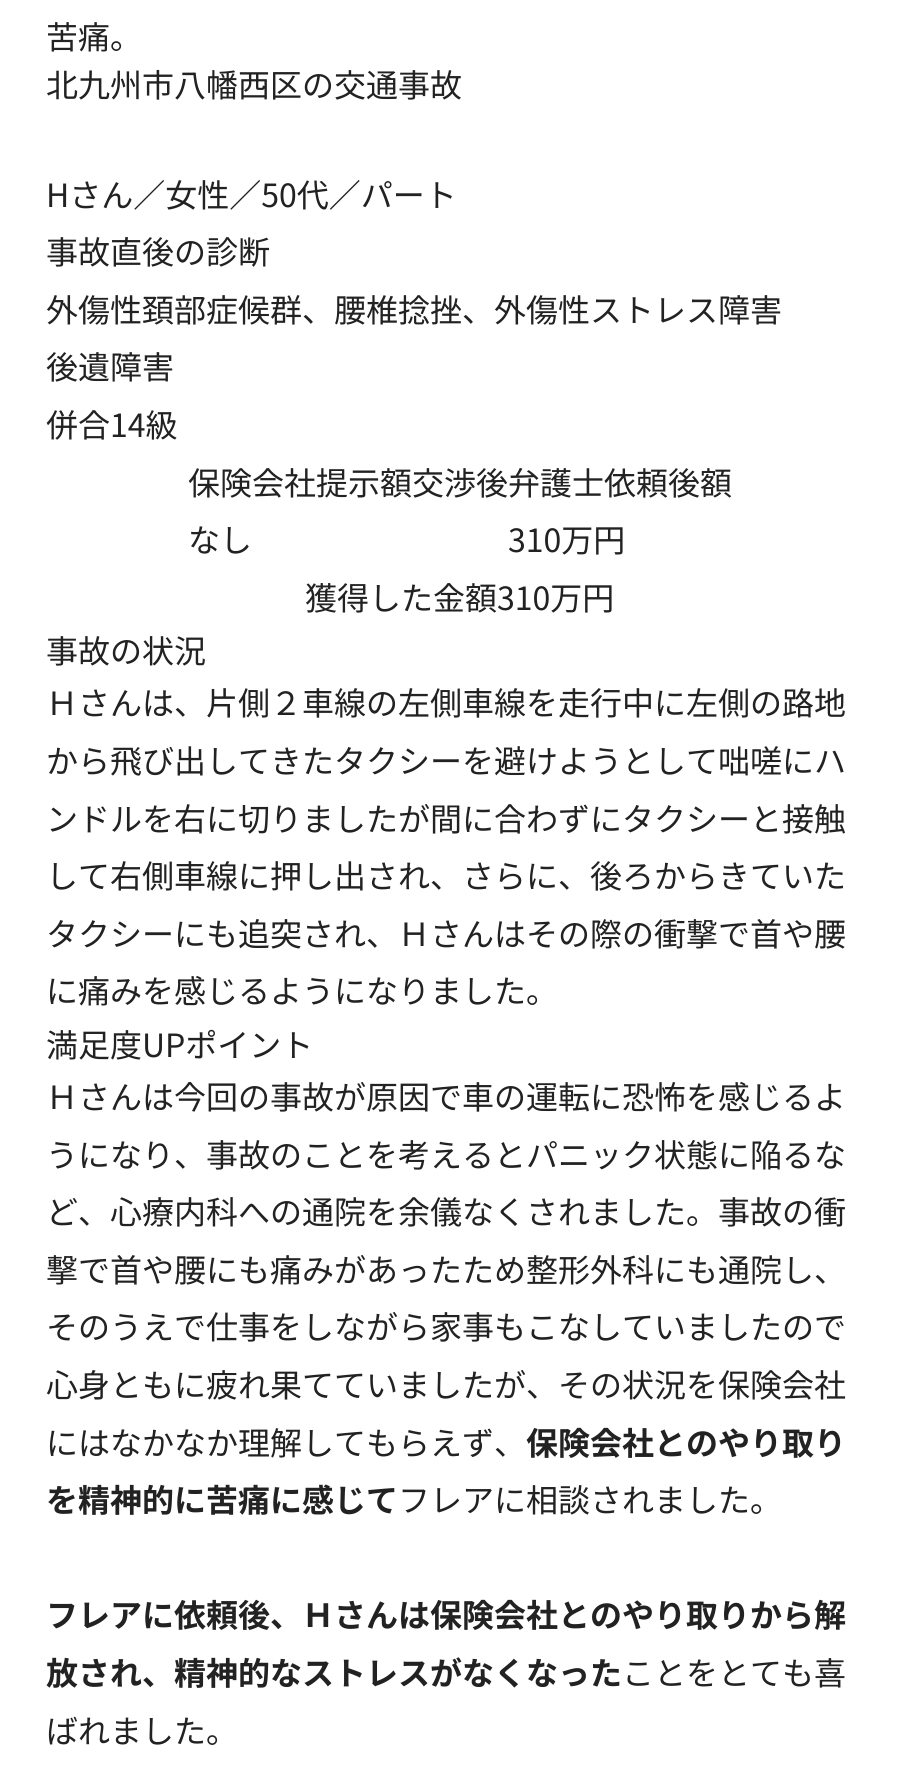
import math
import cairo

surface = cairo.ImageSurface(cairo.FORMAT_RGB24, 920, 1780)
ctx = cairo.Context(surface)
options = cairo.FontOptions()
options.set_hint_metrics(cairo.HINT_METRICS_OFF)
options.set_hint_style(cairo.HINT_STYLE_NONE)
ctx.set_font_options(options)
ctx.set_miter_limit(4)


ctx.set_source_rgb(1, 1, 1)
ctx.paint()
ctx.select_font_face("Noto Sans JP")
ctx.set_font_size(32)
ctx.set_source_rgb(0.133, 0.133, 0.133)
ctx.move_to(46, 49)
ctx.show_text("苦痛。")
ctx.move_to(46, 97)
ctx.show_text("北九州市八幡西区の交通事故")
ctx.move_to(46, 207)
ctx.show_text("Hさん／女性／50代／パート")
ctx.move_to(46, 264)
ctx.show_text("事故直後の診断")
ctx.move_to(46, 322)
ctx.show_text("外傷性頚部症候群、腰椎捻挫、外傷性ストレス障害")
ctx.move_to(46, 379)
ctx.show_text("後遺障害")
ctx.move_to(46, 437)
ctx.show_text("併合14級")
ctx.move_to(188, 495)
ctx.show_text("保険会社提示額交渉後弁護士依頼後額")
ctx.move_to(188, 552)
ctx.show_text("なし")
ctx.move_to(508, 552)
ctx.show_text("310万円")
ctx.move_to(305, 610)
ctx.show_text("獲得した金額310万円")
ctx.move_to(46, 663)
ctx.show_text("事故の状況")
ctx.move_to(46, 715)
ctx.show_text("Ｈさんは、片側２車線の左側車線を走行中に左側の路地")
ctx.move_to(46, 773)
ctx.show_text("から飛び出してきたタクシーを避けようとして咄嗟にハ")
ctx.move_to(46, 831)
ctx.show_text("ンドルを右に切りましたが間に合わずにタクシーと接触")
ctx.move_to(46, 888)
ctx.show_text("して右側車線に押し出され、さらに、後ろからきていた")
ctx.move_to(46, 946)
ctx.show_text("タクシーにも追突され、Ｈさんはその際の衝撃で首や腰")
ctx.move_to(46, 1003)
ctx.show_text("に痛みを感じるようになりました。")
ctx.move_to(46, 1057)
ctx.show_text("満足度UPポイント")
ctx.move_to(46, 1109)
ctx.show_text("Ｈさんは今回の事故が原因で車の運転に恐怖を感じるよ")
ctx.move_to(46, 1167)
ctx.show_text("うになり、事故のことを考えるとパニック状態に陥るな")
ctx.move_to(46, 1224)
ctx.show_text("ど、心療内科への通院を余儀なくされました。事故の衝")
ctx.move_to(46, 1282)
ctx.show_text("撃で首や腰にも痛みがあったため整形外科にも通院し、")
ctx.move_to(46, 1339)
ctx.show_text("そのうえで仕事をしながら家事もこなしていましたので")
ctx.move_to(46, 1397)
ctx.show_text("心身ともに疲れ果てていましたが、その状況を保険会社")
ctx.move_to(46, 1455)
ctx.show_text("にはなかなか理解してもらえず、")
ctx.select_font_face("Noto Sans JP", cairo.FONT_SLANT_NORMAL, cairo.FONT_WEIGHT_BOLD)
ctx.move_to(526, 1455)
ctx.show_text("保険会社とのやり取り")
ctx.move_to(46, 1512)
ctx.show_text("を精神的に苦痛に感じて")
ctx.select_font_face("Noto Sans JP")
ctx.move_to(398, 1512)
ctx.show_text("フレアに相談されました。")
ctx.select_font_face("Noto Sans JP", cairo.FONT_SLANT_NORMAL, cairo.FONT_WEIGHT_BOLD)
ctx.move_to(46, 1627)
ctx.show_text("フレアに依頼後、Ｈさんは保険会社とのやり取りから解")
ctx.move_to(46, 1685)
ctx.show_text("放され、精神的なストレスがなくなった")
ctx.select_font_face("Noto Sans JP")
ctx.move_to(622, 1685)
ctx.show_text("ことをとても喜")
ctx.move_to(46, 1743)
ctx.show_text("ばれました。")
surface.write_to_png("page.png")
